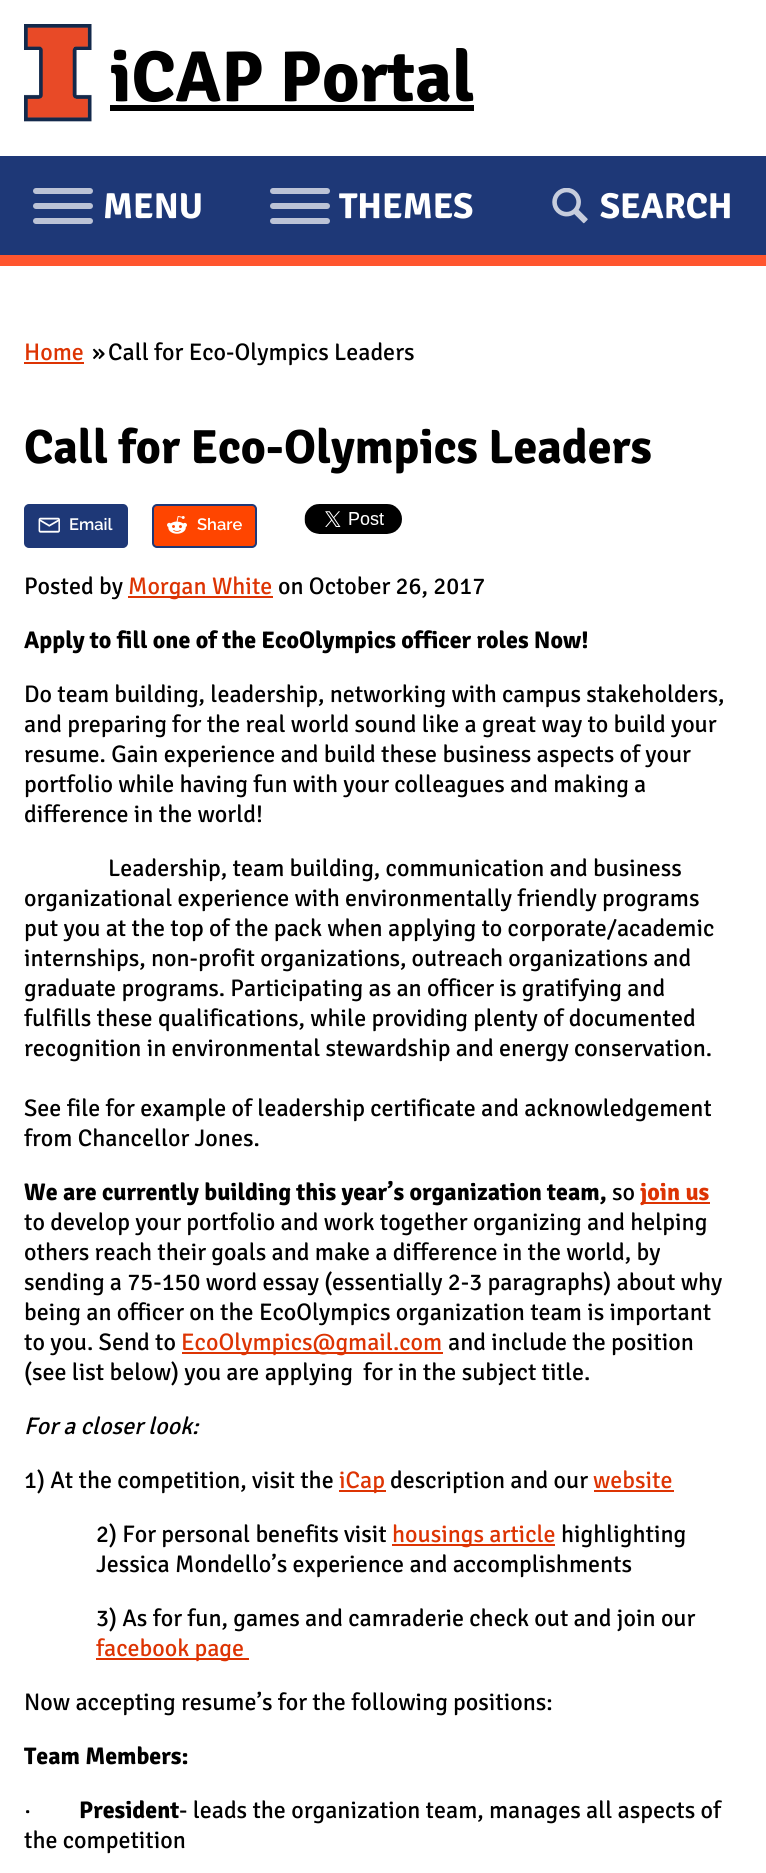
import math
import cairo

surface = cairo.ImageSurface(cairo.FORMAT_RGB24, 766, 1873)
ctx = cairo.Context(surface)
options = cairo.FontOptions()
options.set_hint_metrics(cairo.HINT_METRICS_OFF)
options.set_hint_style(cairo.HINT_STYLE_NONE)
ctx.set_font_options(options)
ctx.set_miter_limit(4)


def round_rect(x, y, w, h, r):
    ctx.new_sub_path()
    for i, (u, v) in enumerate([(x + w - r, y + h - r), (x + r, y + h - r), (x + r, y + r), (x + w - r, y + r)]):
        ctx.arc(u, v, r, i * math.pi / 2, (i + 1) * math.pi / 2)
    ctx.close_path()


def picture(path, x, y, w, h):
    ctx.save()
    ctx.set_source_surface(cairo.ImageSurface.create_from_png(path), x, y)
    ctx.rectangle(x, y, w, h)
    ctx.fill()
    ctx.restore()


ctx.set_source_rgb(1, 1, 1)
ctx.paint()
picture("img1.png", 24, 24, 68, 98)
ctx.select_font_face("Signika", cairo.FONT_SLANT_NORMAL, cairo.FONT_WEIGHT_BOLD)
ctx.set_font_size(72)
ctx.set_source_rgb(0, 0, 0)
ctx.move_to(110, 101)
ctx.show_text("iCAP Portal")
ctx.rectangle(110, 105, 364, 6)
ctx.fill()
ctx.set_source_rgb(1, 0.333, 0.18)
ctx.rectangle(0, 255, 766, 11)
ctx.fill()
ctx.set_source_rgb(0.118, 0.22, 0.467)
ctx.rectangle(0, 156, 766, 99)
ctx.fill()
ctx.set_source_rgb(0.737, 0.765, 0.839)
round_rect(33, 218, 60, 6, 3)
ctx.fill()
round_rect(33, 188, 60, 6, 3)
ctx.fill()
round_rect(33, 203, 60, 6, 3)
ctx.fill()
ctx.set_font_size(36)
ctx.set_source_rgb(1, 1, 1)
ctx.move_to(103, 218)
ctx.show_text("MENU")
ctx.set_source_rgb(0.737, 0.765, 0.839)
round_rect(270, 218, 60, 6, 3)
ctx.fill()
round_rect(270, 188, 60, 6, 3)
ctx.fill()
round_rect(270, 203, 60, 6, 3)
ctx.fill()
ctx.set_source_rgb(1, 1, 1)
ctx.move_to(339, 218)
ctx.show_text("THEMES")
picture("img2.png", 552, 188, 36, 36)
ctx.move_to(600, 218)
ctx.show_text("SEARCH")
ctx.select_font_face("Signika")
ctx.set_font_size(24)
ctx.set_source_rgb(0.867, 0.204, 0.012)
ctx.move_to(24, 360)
ctx.show_text("Home")
ctx.rectangle(24, 362, 60, 2)
ctx.fill()
ctx.set_source_rgb(0, 0, 0)
ctx.move_to(92, 360)
ctx.show_text("»")
ctx.move_to(108, 360)
ctx.show_text("Call for Eco-Olympics Leaders")
ctx.select_font_face("Signika", cairo.FONT_SLANT_NORMAL, cairo.FONT_WEIGHT_BOLD)
ctx.set_font_size(48)
ctx.move_to(24, 463)
ctx.show_text("Call for Eco-Olympics Leaders")
ctx.set_source_rgb(0.118, 0.22, 0.467)
round_rect(25, 505, 102, 42, 4)
ctx.fill_preserve()
ctx.stroke()
picture("img3.png", 38, 517, 22, 16)
ctx.select_font_face("Raleway SemiBold")
ctx.set_font_size(16.5)
ctx.set_source_rgb(1, 1, 1)
ctx.move_to(69, 530)
ctx.show_text("Email")
ctx.set_source_rgb(1, 0.271, 0)
round_rect(153, 505, 103, 42, 4)
ctx.fill_preserve()
ctx.set_source_rgb(0.118, 0.22, 0.467)
ctx.stroke()
picture("img4.png", 167, 516, 20, 18)
ctx.set_source_rgb(1, 1, 1)
ctx.move_to(197, 530)
ctx.show_text("Share")
picture("img5.png", 304, 504, 98, 30)
ctx.select_font_face("Signika")
ctx.set_font_size(24)
ctx.set_source_rgb(0, 0, 0)
ctx.move_to(24, 594)
ctx.show_text("Posted by")
ctx.set_source_rgb(0.867, 0.204, 0.012)
ctx.rectangle(128, 596, 145, 2)
ctx.fill()
ctx.move_to(128, 594)
ctx.show_text("Morgan White")
ctx.set_source_rgb(0, 0, 0)
ctx.move_to(278, 594)
ctx.show_text("on October 26, 2017")
ctx.select_font_face("Signika", cairo.FONT_SLANT_NORMAL, cairo.FONT_WEIGHT_BOLD)
ctx.move_to(24, 648)
ctx.show_text("Apply to fill one of the EcoOlympics officer roles Now!")
ctx.select_font_face("Signika")
ctx.move_to(24, 702)
ctx.show_text("Do team building, leadership, networking with campus stakeholders,")
ctx.move_to(24, 732)
ctx.show_text("and preparing for the real world sound like a great way to build your")
ctx.move_to(24, 762)
ctx.show_text("resume. Gain experience and build these business aspects of your")
ctx.move_to(24, 792)
ctx.show_text("portfolio while having fun with your colleagues and making a")
ctx.move_to(24, 822)
ctx.show_text("difference in the world!")
ctx.move_to(108, 876)
ctx.show_text("Leadership, team building, communication and business")
ctx.move_to(24, 906)
ctx.show_text("organizational experience with environmentally friendly programs")
ctx.move_to(24, 936)
ctx.show_text("put you at the top of the pack when applying to corporate/academic")
ctx.move_to(24, 966)
ctx.show_text("internships, non-profit organizations, outreach organizations and")
ctx.move_to(24, 996)
ctx.show_text("graduate programs. Participating as an officer is gratifying and")
ctx.move_to(24, 1026)
ctx.show_text("fulfills these qualifications, while providing plenty of documented")
ctx.move_to(24, 1056)
ctx.show_text("recognition in environmental stewardship and energy conservation.")
ctx.move_to(24, 1116)
ctx.show_text("See file for example of leadership certificate and acknowledgement")
ctx.move_to(24, 1146)
ctx.show_text("from Chancellor Jones.")
ctx.select_font_face("Signika", cairo.FONT_SLANT_NORMAL, cairo.FONT_WEIGHT_BOLD)
ctx.move_to(24, 1200)
ctx.show_text("We are currently building this year’s organization team,")
ctx.select_font_face("Signika")
ctx.move_to(612, 1200)
ctx.show_text("so")
ctx.set_source_rgb(0.867, 0.204, 0.012)
ctx.rectangle(641, 1202, 69, 2)
ctx.fill()
ctx.select_font_face("Signika", cairo.FONT_SLANT_NORMAL, cairo.FONT_WEIGHT_BOLD)
ctx.move_to(640, 1200)
ctx.show_text("join us")
ctx.select_font_face("Signika")
ctx.set_source_rgb(0, 0, 0)
ctx.move_to(24, 1230)
ctx.show_text("to develop your portfolio and work together organizing and helping")
ctx.move_to(24, 1260)
ctx.show_text("others reach their goals and make a difference in the world, by")
ctx.move_to(24, 1290)
ctx.show_text("sending a 75-150 word essay (essentially 2-3 paragraphs) about why")
ctx.move_to(24, 1320)
ctx.show_text("being an officer on the EcoOlympics organization team is important")
ctx.move_to(24, 1350)
ctx.show_text("to you. Send to")
ctx.set_source_rgb(0.867, 0.204, 0.012)
ctx.rectangle(182, 1352, 261, 2)
ctx.fill()
ctx.move_to(181, 1350)
ctx.show_text("EcoOlympics@gmail.com")
ctx.set_source_rgb(0, 0, 0)
ctx.move_to(448, 1350)
ctx.show_text("and include the position")
ctx.move_to(24, 1380)
ctx.show_text("(see list below) you are applying  for in the subject title.")
ctx.select_font_face("Signika", cairo.FONT_SLANT_ITALIC)
ctx.move_to(24, 1434)
ctx.show_text("For a closer look:")
ctx.select_font_face("Signika")
ctx.move_to(24, 1488)
ctx.show_text("1) At the competition, visit the")
ctx.set_source_rgb(0.867, 0.204, 0.012)
ctx.rectangle(339, 1490, 47, 2)
ctx.fill()
ctx.move_to(339, 1488)
ctx.show_text("iCap")
ctx.set_source_rgb(0, 0, 0)
ctx.move_to(390, 1488)
ctx.show_text("description and our")
ctx.set_source_rgb(0.867, 0.204, 0.012)
ctx.move_to(593, 1488)
ctx.show_text("website")
ctx.rectangle(594, 1490, 80, 2)
ctx.fill()
ctx.set_source_rgb(0, 0, 0)
ctx.move_to(96, 1542)
ctx.show_text("2) For personal benefits visit")
ctx.set_source_rgb(0.867, 0.204, 0.012)
ctx.rectangle(392, 1544, 163, 2)
ctx.fill()
ctx.move_to(392, 1542)
ctx.show_text("housings article")
ctx.set_source_rgb(0, 0, 0)
ctx.move_to(561, 1542)
ctx.show_text("highlighting")
ctx.move_to(96, 1572)
ctx.show_text("Jessica Mondello’s experience and accomplishments")
ctx.move_to(96, 1626)
ctx.show_text("3) As for fun, games and camraderie check out and join our")
ctx.set_source_rgb(0.867, 0.204, 0.012)
ctx.rectangle(96, 1658, 153, 2)
ctx.fill()
ctx.move_to(96, 1656)
ctx.show_text("facebook page")
ctx.set_source_rgb(0, 0, 0)
ctx.move_to(24, 1710)
ctx.show_text("Now accepting resume’s for the following positions:")
ctx.select_font_face("Signika", cairo.FONT_SLANT_NORMAL, cairo.FONT_WEIGHT_BOLD)
ctx.move_to(24, 1764)
ctx.show_text("Team Members:")
ctx.select_font_face("Signika")
ctx.move_to(24, 1818)
ctx.show_text("·")
ctx.select_font_face("Signika", cairo.FONT_SLANT_NORMAL, cairo.FONT_WEIGHT_BOLD)
ctx.move_to(79, 1818)
ctx.show_text("President")
ctx.select_font_face("Signika")
ctx.move_to(179, 1818)
ctx.show_text("- leads the organization team, manages all aspects of")
ctx.move_to(24, 1848)
ctx.show_text("the competition")
surface.write_to_png("page.png")
